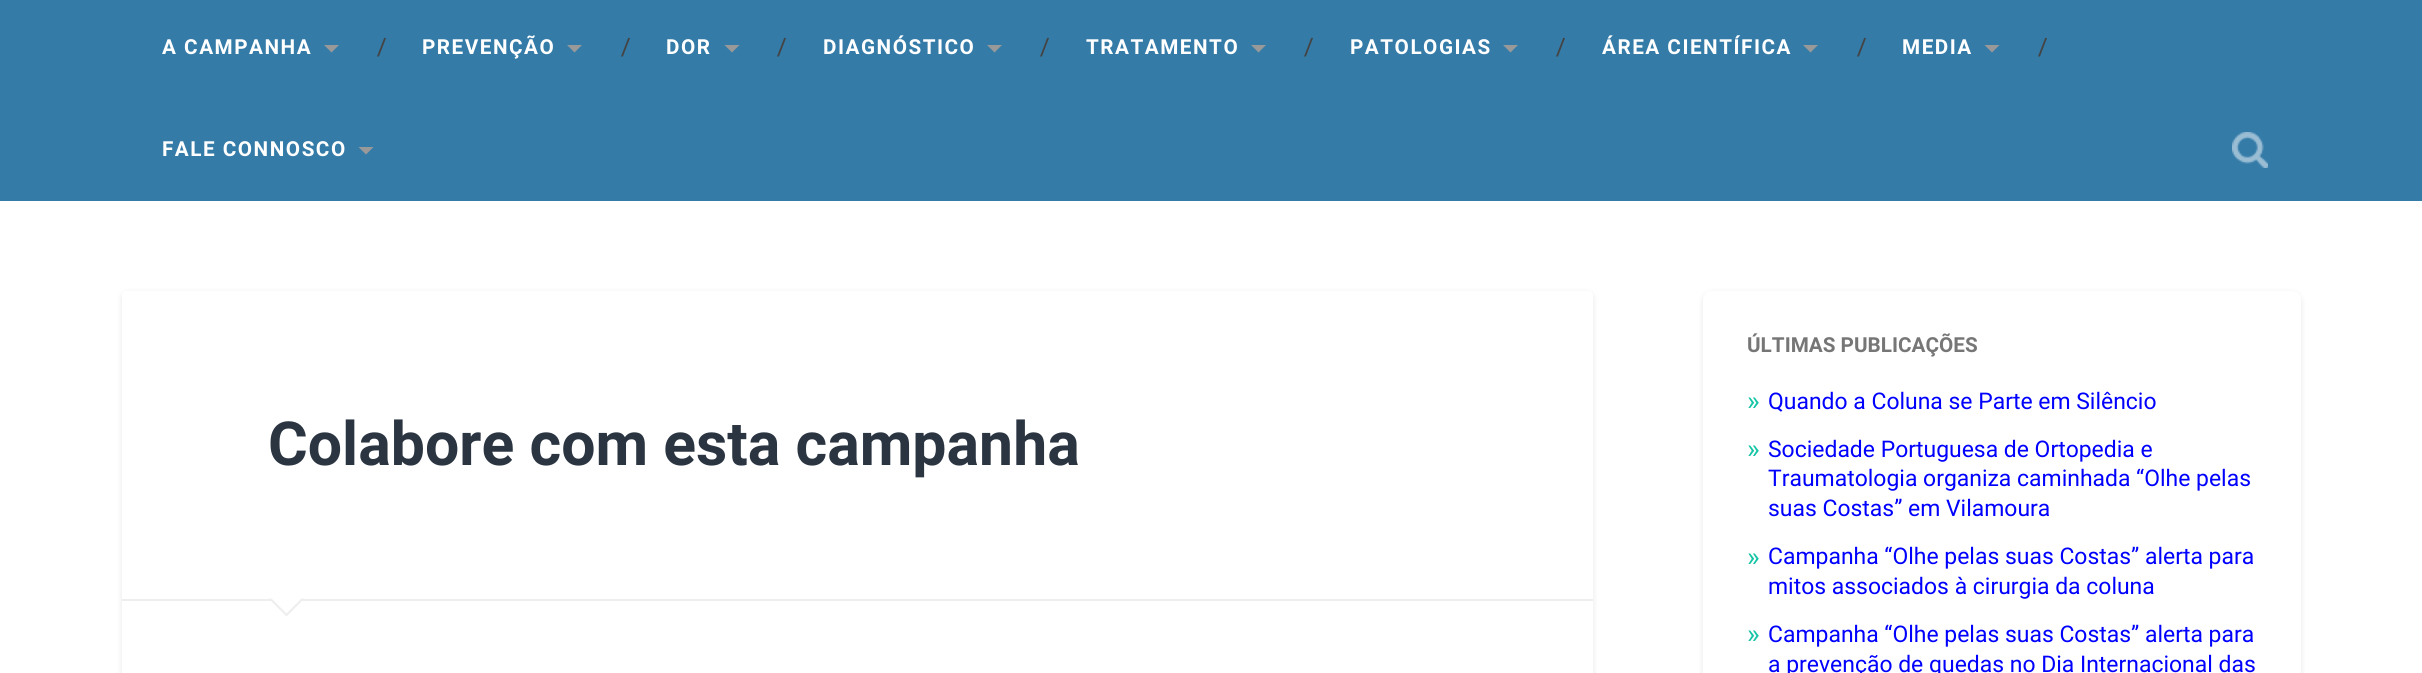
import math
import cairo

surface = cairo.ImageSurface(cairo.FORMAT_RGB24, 2422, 673)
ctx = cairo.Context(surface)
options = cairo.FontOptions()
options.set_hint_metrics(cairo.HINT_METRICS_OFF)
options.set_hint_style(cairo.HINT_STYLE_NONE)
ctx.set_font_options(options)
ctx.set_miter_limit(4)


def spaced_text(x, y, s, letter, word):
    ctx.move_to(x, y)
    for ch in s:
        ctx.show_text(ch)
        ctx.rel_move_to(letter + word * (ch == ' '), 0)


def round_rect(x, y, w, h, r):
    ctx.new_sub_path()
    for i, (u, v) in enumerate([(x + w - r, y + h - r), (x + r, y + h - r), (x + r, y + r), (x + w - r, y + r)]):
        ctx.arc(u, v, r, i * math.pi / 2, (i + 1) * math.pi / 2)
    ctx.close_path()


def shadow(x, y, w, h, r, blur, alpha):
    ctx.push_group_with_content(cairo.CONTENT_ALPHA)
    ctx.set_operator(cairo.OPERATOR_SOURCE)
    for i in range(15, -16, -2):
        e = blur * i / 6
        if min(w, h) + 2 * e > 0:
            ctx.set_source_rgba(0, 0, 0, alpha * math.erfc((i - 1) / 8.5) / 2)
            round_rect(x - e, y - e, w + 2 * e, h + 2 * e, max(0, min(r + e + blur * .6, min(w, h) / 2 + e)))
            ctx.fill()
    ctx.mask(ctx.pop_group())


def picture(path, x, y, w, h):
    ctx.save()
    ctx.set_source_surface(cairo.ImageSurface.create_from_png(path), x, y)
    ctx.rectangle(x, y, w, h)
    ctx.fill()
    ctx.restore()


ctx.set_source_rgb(1, 1, 1)
ctx.paint()
ctx.set_source_rgb(0.204, 0.482, 0.659)
ctx.rectangle(0, 0, 2422, 201)
ctx.fill()
ctx.select_font_face("Roboto", cairo.FONT_SLANT_NORMAL, cairo.FONT_WEIGHT_BOLD)
ctx.set_font_size(20.7)
ctx.set_source_rgb(1, 1, 1)
spaced_text(162, 54, "A CAMPANHA", 1.5, 0)
ctx.set_source_rgb(0.6, 0.6, 0.6)
ctx.new_path()
ctx.move_to(324, 45)
ctx.line_to(339, 45)
ctx.line_to(331.5, 52.5)
ctx.close_path()
ctx.fill()
ctx.select_font_face("Roboto Slab")
ctx.set_font_size(24)
ctx.set_source_rgb(0.267, 0.267, 0.267)
ctx.move_to(377, 55)
ctx.show_text("/")
ctx.select_font_face("Roboto", cairo.FONT_SLANT_NORMAL, cairo.FONT_WEIGHT_BOLD)
ctx.set_font_size(20.7)
ctx.set_source_rgb(1, 1, 1)
spaced_text(422, 54, "PREVENÇÃO", 1.5, 0)
ctx.set_source_rgb(0.6, 0.6, 0.6)
ctx.new_path()
ctx.move_to(567, 45)
ctx.line_to(582, 45)
ctx.line_to(574.5, 52.5)
ctx.close_path()
ctx.fill()
ctx.select_font_face("Roboto Slab")
ctx.set_font_size(24)
ctx.set_source_rgb(0.267, 0.267, 0.267)
ctx.move_to(621, 55)
ctx.show_text("/")
ctx.select_font_face("Roboto", cairo.FONT_SLANT_NORMAL, cairo.FONT_WEIGHT_BOLD)
ctx.set_font_size(20.7)
ctx.set_source_rgb(1, 1, 1)
spaced_text(666, 54, "DOR", 1.5, 0)
ctx.set_source_rgb(0.6, 0.6, 0.6)
ctx.new_path()
ctx.move_to(724.5, 45)
ctx.line_to(739.5, 45)
ctx.line_to(732, 52.5)
ctx.close_path()
ctx.fill()
ctx.select_font_face("Roboto Slab")
ctx.set_font_size(24)
ctx.set_source_rgb(0.267, 0.267, 0.267)
ctx.move_to(777, 55)
ctx.show_text("/")
ctx.select_font_face("Roboto", cairo.FONT_SLANT_NORMAL, cairo.FONT_WEIGHT_BOLD)
ctx.set_font_size(20.7)
ctx.set_source_rgb(1, 1, 1)
spaced_text(823, 54, "DIAGNÓSTICO", 1.5, 0)
ctx.set_source_rgb(0.6, 0.6, 0.6)
ctx.new_path()
ctx.move_to(987, 45)
ctx.line_to(1002, 45)
ctx.line_to(994.5, 52.5)
ctx.close_path()
ctx.fill()
ctx.select_font_face("Roboto Slab")
ctx.set_font_size(24)
ctx.set_source_rgb(0.267, 0.267, 0.267)
ctx.move_to(1040, 55)
ctx.show_text("/")
ctx.select_font_face("Roboto", cairo.FONT_SLANT_NORMAL, cairo.FONT_WEIGHT_BOLD)
ctx.set_font_size(20.7)
ctx.set_source_rgb(1, 1, 1)
spaced_text(1086, 54, "TRATAMENTO", 1.5, 0)
ctx.set_source_rgb(0.6, 0.6, 0.6)
ctx.new_path()
ctx.move_to(1251, 45)
ctx.line_to(1266, 45)
ctx.line_to(1258.5, 52.5)
ctx.close_path()
ctx.fill()
ctx.select_font_face("Roboto Slab")
ctx.set_font_size(24)
ctx.set_source_rgb(0.267, 0.267, 0.267)
ctx.move_to(1304, 55)
ctx.show_text("/")
ctx.select_font_face("Roboto", cairo.FONT_SLANT_NORMAL, cairo.FONT_WEIGHT_BOLD)
ctx.set_font_size(20.7)
ctx.set_source_rgb(1, 1, 1)
spaced_text(1350, 54, "PATOLOGIAS", 1.5, 0)
ctx.set_source_rgb(0.6, 0.6, 0.6)
ctx.new_path()
ctx.move_to(1503, 45)
ctx.line_to(1518, 45)
ctx.line_to(1510.5, 52.5)
ctx.close_path()
ctx.fill()
ctx.select_font_face("Roboto Slab")
ctx.set_font_size(24)
ctx.set_source_rgb(0.267, 0.267, 0.267)
ctx.move_to(1556, 55)
ctx.show_text("/")
ctx.select_font_face("Roboto", cairo.FONT_SLANT_NORMAL, cairo.FONT_WEIGHT_BOLD)
ctx.set_font_size(20.7)
ctx.set_source_rgb(1, 1, 1)
spaced_text(1602, 54, "ÁREA CIENTÍFICA", 1.5, 0)
ctx.set_source_rgb(0.6, 0.6, 0.6)
ctx.new_path()
ctx.move_to(1803, 45)
ctx.line_to(1818, 45)
ctx.line_to(1810.5, 52.5)
ctx.close_path()
ctx.fill()
ctx.select_font_face("Roboto Slab")
ctx.set_font_size(24)
ctx.set_source_rgb(0.267, 0.267, 0.267)
ctx.move_to(1857, 55)
ctx.show_text("/")
ctx.select_font_face("Roboto", cairo.FONT_SLANT_NORMAL, cairo.FONT_WEIGHT_BOLD)
ctx.set_font_size(20.7)
ctx.set_source_rgb(1, 1, 1)
spaced_text(1902, 54, "MEDIA", 1.5, 0)
ctx.set_source_rgb(0.6, 0.6, 0.6)
ctx.new_path()
ctx.move_to(1984.5, 45)
ctx.line_to(1999.5, 45)
ctx.line_to(1992, 52.5)
ctx.close_path()
ctx.fill()
ctx.select_font_face("Roboto Slab")
ctx.set_font_size(24)
ctx.set_source_rgb(0.267, 0.267, 0.267)
ctx.move_to(2038, 55)
ctx.show_text("/")
ctx.select_font_face("Roboto", cairo.FONT_SLANT_NORMAL, cairo.FONT_WEIGHT_BOLD)
ctx.set_font_size(20.7)
ctx.set_source_rgb(1, 1, 1)
spaced_text(162, 156, "FALE CONNOSCO", 1.5, 0)
ctx.set_source_rgb(0.6, 0.6, 0.6)
ctx.new_path()
ctx.move_to(358.5, 147)
ctx.line_to(373.5, 147)
ctx.line_to(366, 154.5)
ctx.close_path()
ctx.fill()
picture("img1.png", 2232, 132, 36, 36)
ctx.save()
ctx.set_fill_rule(cairo.FILL_RULE_EVEN_ODD)
ctx.new_path()
ctx.move_to(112, 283)
ctx.line_to(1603, 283)
ctx.line_to(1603, 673)
ctx.line_to(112, 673)
ctx.close_path()
ctx.move_to(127, 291)
ctx.line_to(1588, 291)
ctx.curve_to(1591, 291, 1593, 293, 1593, 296)
ctx.line_to(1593, 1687)
ctx.curve_to(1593, 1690, 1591, 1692, 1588, 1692)
ctx.line_to(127, 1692)
ctx.curve_to(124, 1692, 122, 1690, 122, 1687)
ctx.line_to(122, 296)
ctx.curve_to(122, 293, 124, 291, 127, 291)
ctx.close_path()
ctx.clip()
ctx.set_source_rgb(0, 0, 0)
shadow(122, 293, 1471, 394, 5, 3, 0.1)
ctx.restore()
ctx.set_source_rgb(0.933, 0.933, 0.933)
ctx.rectangle(122, 599, 1471, 2)
ctx.fill()
ctx.set_font_size(60.75)
ctx.set_source_rgb(0.169, 0.208, 0.259)
ctx.move_to(268, 465)
ctx.show_text("Colabore com esta campanha")
ctx.set_source_rgb(0.933, 0.933, 0.933)
ctx.new_path()
ctx.move_to(268.5, 598.5)
ctx.line_to(304.5, 598.5)
ctx.line_to(286.5, 616.5)
ctx.close_path()
ctx.fill()
ctx.set_source_rgb(1, 1, 1)
ctx.new_path()
ctx.move_to(270, 597)
ctx.line_to(303, 597)
ctx.line_to(286.5, 613.5)
ctx.close_path()
ctx.fill()
ctx.set_source_rgb(0, 0, 0)
shadow(1703, 293, 598, 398, 9, 3, 0.1)
ctx.set_source_rgb(1, 1, 1)
round_rect(1703, 291, 598, 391, 9)
ctx.fill()
ctx.set_font_size(20.7)
ctx.set_source_rgb(0.463, 0.463, 0.463)
ctx.move_to(1747, 352)
ctx.show_text("ÚLTIMAS PUBLICAÇÕES")
ctx.select_font_face("Roboto")
ctx.set_font_size(27)
ctx.set_source_rgb(0.075, 0.769, 0.647)
ctx.move_to(1747, 410)
ctx.show_text("»")
ctx.set_font_size(22.95)
ctx.set_source_rgb(0, 0, 1)
ctx.move_to(1768, 409)
ctx.show_text("Quando a Coluna se Parte em Silêncio")
ctx.set_font_size(27)
ctx.set_source_rgb(0.075, 0.769, 0.647)
ctx.move_to(1747, 458)
ctx.show_text("»")
ctx.set_font_size(22.95)
ctx.set_source_rgb(0, 0, 1)
ctx.move_to(1768, 457)
ctx.show_text("Sociedade Portuguesa de Ortopedia e")
ctx.move_to(1768, 486)
ctx.show_text("Traumatologia organiza caminhada “Olhe pelas")
ctx.move_to(1768, 516)
ctx.show_text("suas Costas” em Vilamoura")
ctx.set_font_size(27)
ctx.set_source_rgb(0.075, 0.769, 0.647)
ctx.move_to(1747, 566)
ctx.show_text("»")
ctx.set_font_size(22.95)
ctx.set_source_rgb(0, 0, 1)
ctx.move_to(1768, 564)
ctx.show_text("Campanha “Olhe pelas suas Costas” alerta para")
ctx.move_to(1768, 594)
ctx.show_text("mitos associados à cirurgia da coluna")
ctx.set_font_size(27)
ctx.set_source_rgb(0.075, 0.769, 0.647)
ctx.move_to(1747, 643)
ctx.show_text("»")
ctx.set_font_size(22.95)
ctx.set_source_rgb(0, 0, 1)
ctx.move_to(1768, 642)
ctx.show_text("Campanha “Olhe pelas suas Costas” alerta para")
ctx.move_to(1768, 672)
ctx.show_text("a prevenção de quedas no Dia Internacional das")
surface.write_to_png("page.png")
